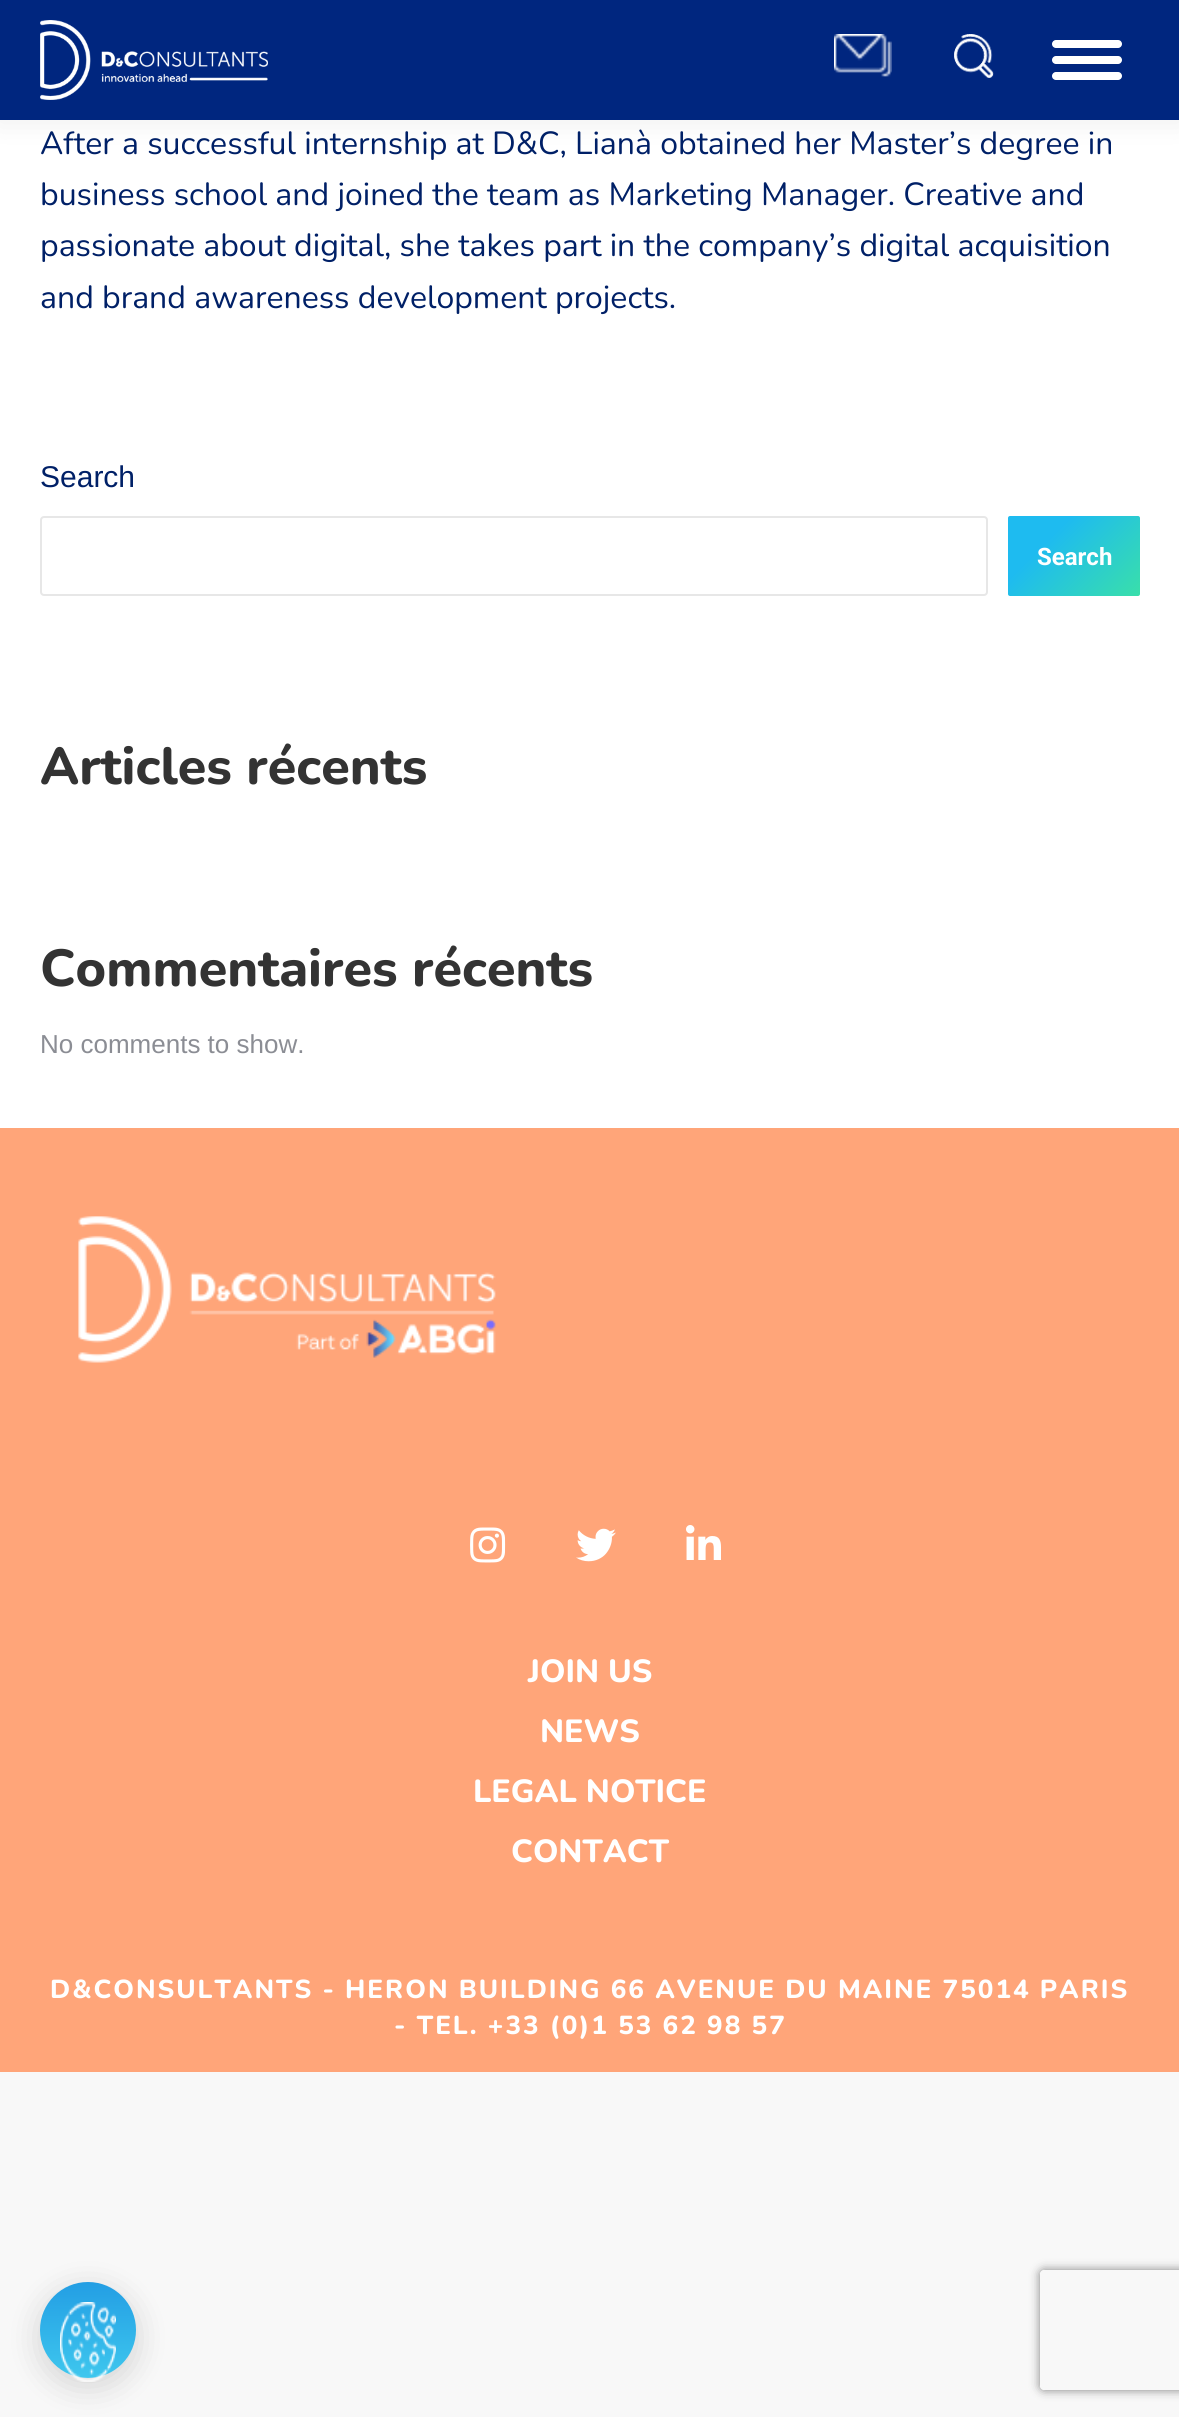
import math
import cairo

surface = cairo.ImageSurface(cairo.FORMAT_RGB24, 1179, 2417)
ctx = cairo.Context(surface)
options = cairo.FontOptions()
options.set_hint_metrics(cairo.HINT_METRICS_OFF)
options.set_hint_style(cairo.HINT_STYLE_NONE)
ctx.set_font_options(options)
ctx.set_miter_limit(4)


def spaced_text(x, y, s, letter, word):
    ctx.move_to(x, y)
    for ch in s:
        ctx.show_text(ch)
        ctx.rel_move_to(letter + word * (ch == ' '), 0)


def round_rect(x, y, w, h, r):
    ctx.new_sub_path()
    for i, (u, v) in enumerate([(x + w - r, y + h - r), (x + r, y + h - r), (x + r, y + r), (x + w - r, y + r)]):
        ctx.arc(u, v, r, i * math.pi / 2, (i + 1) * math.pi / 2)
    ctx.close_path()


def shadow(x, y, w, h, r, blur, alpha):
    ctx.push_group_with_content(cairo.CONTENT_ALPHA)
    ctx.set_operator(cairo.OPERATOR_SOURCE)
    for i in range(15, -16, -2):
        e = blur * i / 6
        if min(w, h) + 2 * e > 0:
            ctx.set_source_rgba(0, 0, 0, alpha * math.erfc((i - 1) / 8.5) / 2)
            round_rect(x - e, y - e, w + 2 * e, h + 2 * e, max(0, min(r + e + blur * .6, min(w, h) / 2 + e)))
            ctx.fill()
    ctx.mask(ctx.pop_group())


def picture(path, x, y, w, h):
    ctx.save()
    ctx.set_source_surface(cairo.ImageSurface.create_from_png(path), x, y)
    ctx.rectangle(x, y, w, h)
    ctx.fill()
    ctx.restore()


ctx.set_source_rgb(0.969, 0.969, 0.969)
ctx.paint()
ctx.set_source_rgb(1, 1, 1)
ctx.rectangle(0, 120, 1179, 1008)
ctx.fill()
ctx.set_source_rgb(0, 0, 0)
shadow(-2, -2, 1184, 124, 0, 15, 0.07)
ctx.set_source_rgb(0, 0.149, 0.498)
ctx.rectangle(0, 0, 1179, 120)
ctx.fill()
picture("img1.png", 40, 20, 228, 80)
picture("img2.png", 834, 34, 58, 43)
picture("img3.png", 954, 34, 40, 44)
ctx.set_source_rgb(1, 1, 1)
round_rect(1052, 40, 70, 8, 4)
ctx.fill()
round_rect(1052, 56, 70, 8, 4)
ctx.fill()
round_rect(1052, 72, 70, 8, 4)
ctx.fill()
ctx.select_font_face("Nunito")
ctx.set_font_size(32)
ctx.set_source_rgb(0, 0.125, 0.404)
ctx.move_to(40, 154)
ctx.show_text("After a successful internship at D&C, Lianà obtained her Master’s degree in")
ctx.move_to(40, 205)
ctx.show_text("business school and joined the team as Marketing Manager. Creative and")
ctx.move_to(40, 256)
ctx.show_text("passionate about digital, she takes part in the company’s digital acquisition")
ctx.move_to(40, 308)
ctx.show_text("and brand awareness development projects.")
ctx.select_font_face("Liberation Sans")
ctx.set_font_size(30)
ctx.move_to(40, 487)
ctx.show_text("Search")
round_rect(41, 517, 946, 78, 3)
ctx.set_source_rgb(0.906, 0.906, 0.906)
ctx.stroke()
gradient = cairo.LinearGradient(1021, 503, 1127, 609)
gradient.add_color_stop_rgba(0.3, 0.118, 0.733, 0.941, 1)
gradient.add_color_stop_rgba(1, 0.224, 0.875, 0.667, 1)
ctx.set_source(gradient)
round_rect(1008, 516, 132, 80, 2)
ctx.fill()
ctx.select_font_face("Roboto", cairo.FONT_SLANT_NORMAL, cairo.FONT_WEIGHT_BOLD)
ctx.set_font_size(24)
ctx.set_source_rgb(1, 1, 1)
ctx.move_to(1037, 565)
ctx.show_text("Search")
ctx.select_font_face("Nunito ExtraBold")
ctx.set_font_size(52)
ctx.set_source_rgb(0.2, 0.2, 0.2)
ctx.move_to(40, 784)
ctx.show_text("Articles récents")
ctx.move_to(40, 986)
ctx.show_text("Commentaires récents")
ctx.select_font_face("Liberation Sans")
ctx.set_font_size(26)
ctx.set_source_rgb(0.545, 0.553, 0.58)
ctx.move_to(40, 1053)
ctx.show_text("No comments to show.")
ctx.set_source_rgb(1, 0.647, 0.475)
ctx.rectangle(0, 1128, 1179, 944)
ctx.fill()
picture("img4.png", 78, 1216, 418, 147)
picture("img5.png", 470, 1527, 36, 36)
picture("img6.png", 576, 1528, 40, 34)
picture("img7.png", 686, 1525, 35, 35)
ctx.select_font_face("Nunito ExtraBold")
ctx.set_font_size(32)
ctx.set_source_rgb(1, 1, 1)
ctx.move_to(528, 1682)
ctx.show_text("JOIN US")
ctx.move_to(540, 1742)
ctx.show_text("NEWS")
ctx.move_to(473, 1802)
ctx.show_text("LEGAL NOTICE")
ctx.move_to(511, 1862)
ctx.show_text("CONTACT")
ctx.set_font_size(26)
spaced_text(50, 1998, "D&CONSULTANTS - HERON BUILDING 66 AVENUE DU MAINE 75014 PARIS", 2, 0)
spaced_text(394, 2034, "- TEL. +33 (0)1 53 62 98 57", 2, 0)
ctx.set_source_rgb(0, 0, 0)
shadow(40, 2290, 96, 96, 48, 16, 0.15)
gradient = cairo.LinearGradient(88, 2282, 88, 2378)
gradient.add_color_stop_rgba(0, 0.137, 0.62, 0.894, 1)
gradient.add_color_stop_rgba(1, 0.243, 0.78, 0.933, 1)
ctx.set_source(gradient)
ctx.arc(88, 2330, 48, 0, 2 * math.pi)
ctx.fill()
picture("img8.png", 60, 2302, 56, 80)
ctx.save()
ctx.set_fill_rule(cairo.FILL_RULE_EVEN_ODD)
ctx.new_path()
ctx.move_to(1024, 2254)
ctx.line_to(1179, 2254)
ctx.line_to(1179, 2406)
ctx.line_to(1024, 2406)
ctx.close_path()
ctx.move_to(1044, 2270)
ctx.line_to(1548, 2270)
ctx.curve_to(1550, 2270, 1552, 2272, 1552, 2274)
ctx.line_to(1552, 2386)
ctx.curve_to(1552, 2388, 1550, 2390, 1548, 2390)
ctx.line_to(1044, 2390)
ctx.curve_to(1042, 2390, 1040, 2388, 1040, 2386)
ctx.line_to(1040, 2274)
ctx.curve_to(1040, 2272, 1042, 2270, 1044, 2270)
ctx.close_path()
ctx.clip()
ctx.set_source_rgb(0.502, 0.502, 0.502)
shadow(1040, 2270, 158, 120, 4, 5, 1)
ctx.restore()
surface.write_to_png("page.png")
